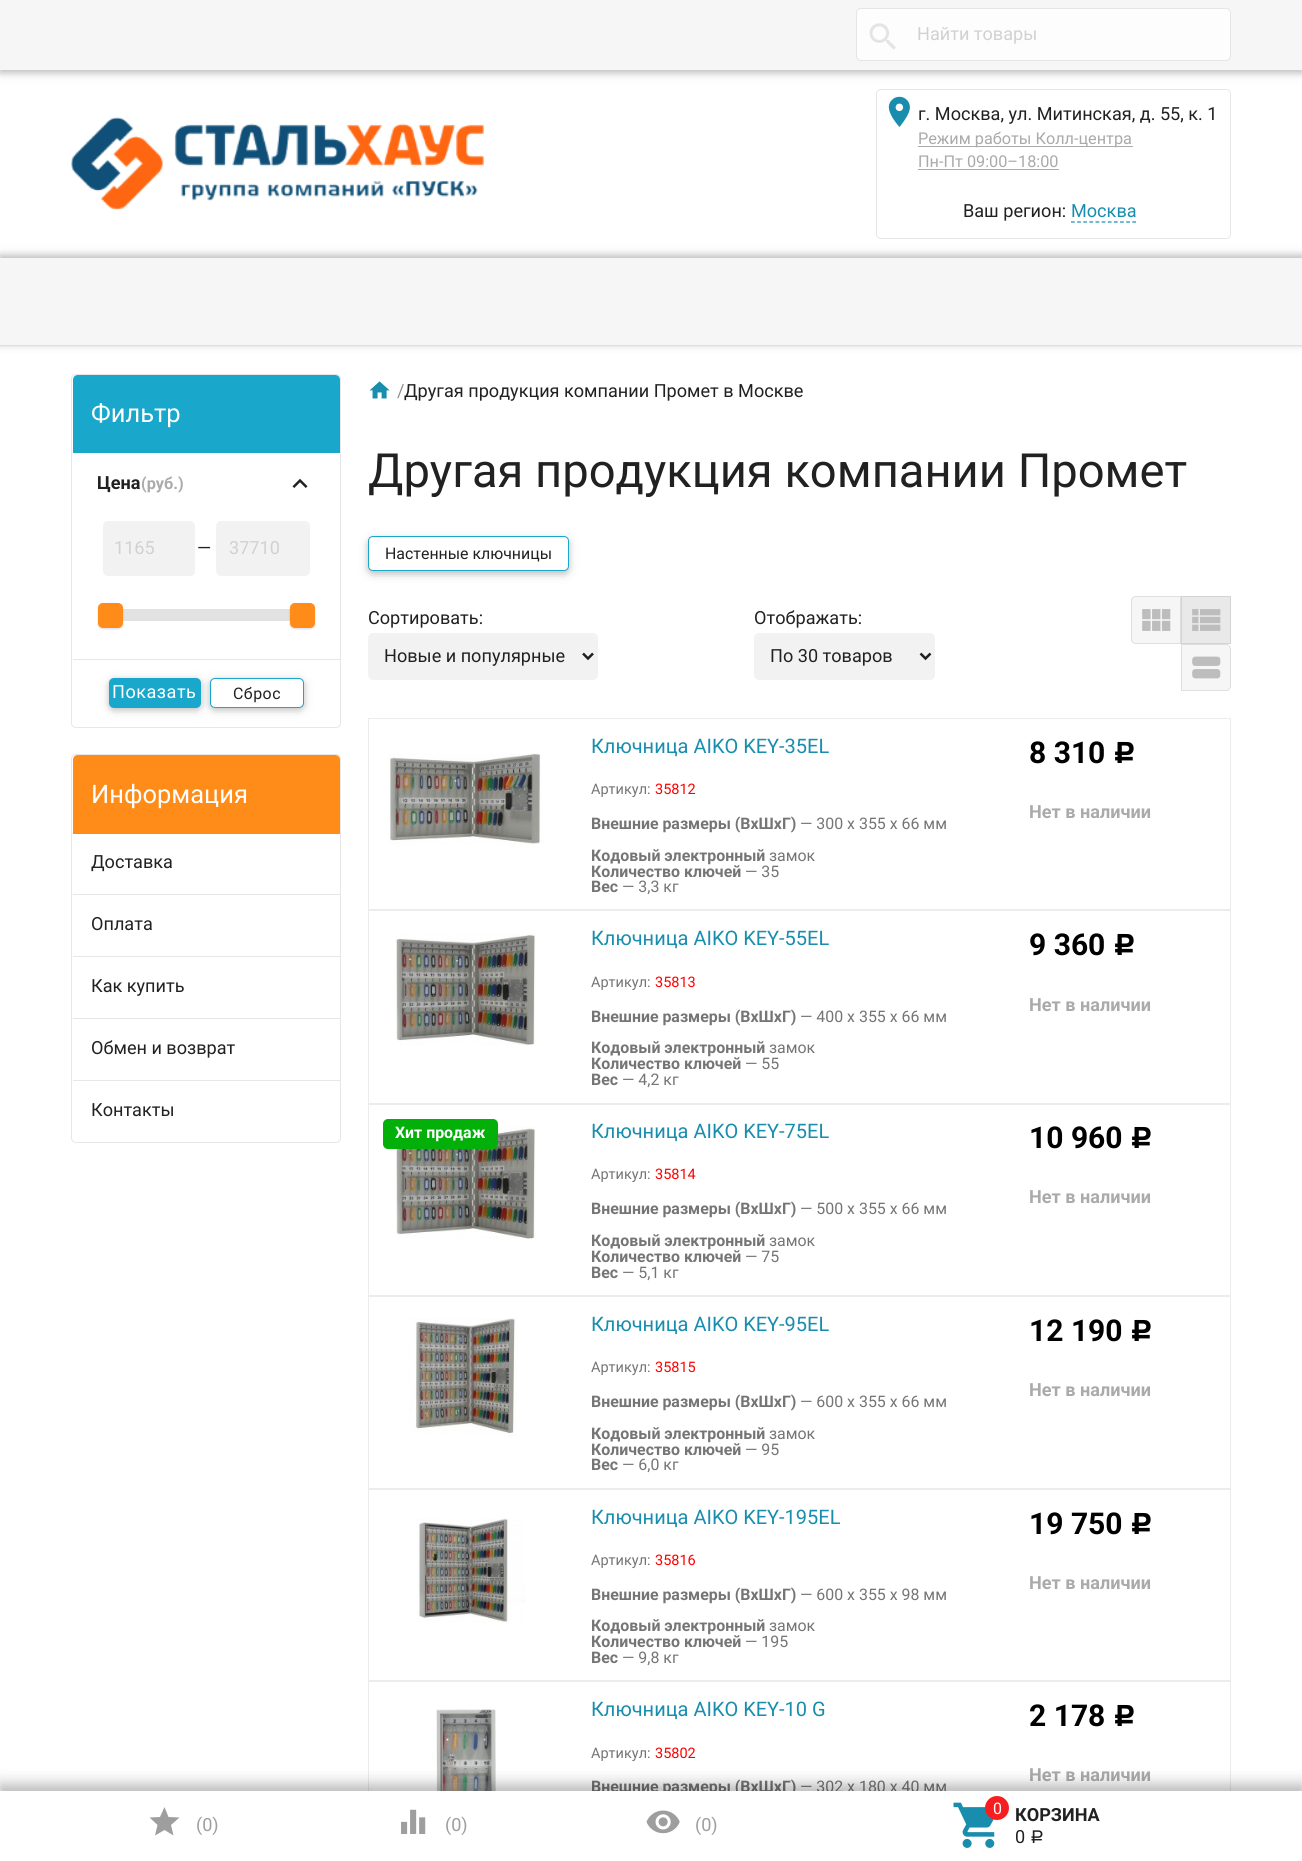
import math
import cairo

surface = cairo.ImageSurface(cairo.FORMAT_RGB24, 1302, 1861)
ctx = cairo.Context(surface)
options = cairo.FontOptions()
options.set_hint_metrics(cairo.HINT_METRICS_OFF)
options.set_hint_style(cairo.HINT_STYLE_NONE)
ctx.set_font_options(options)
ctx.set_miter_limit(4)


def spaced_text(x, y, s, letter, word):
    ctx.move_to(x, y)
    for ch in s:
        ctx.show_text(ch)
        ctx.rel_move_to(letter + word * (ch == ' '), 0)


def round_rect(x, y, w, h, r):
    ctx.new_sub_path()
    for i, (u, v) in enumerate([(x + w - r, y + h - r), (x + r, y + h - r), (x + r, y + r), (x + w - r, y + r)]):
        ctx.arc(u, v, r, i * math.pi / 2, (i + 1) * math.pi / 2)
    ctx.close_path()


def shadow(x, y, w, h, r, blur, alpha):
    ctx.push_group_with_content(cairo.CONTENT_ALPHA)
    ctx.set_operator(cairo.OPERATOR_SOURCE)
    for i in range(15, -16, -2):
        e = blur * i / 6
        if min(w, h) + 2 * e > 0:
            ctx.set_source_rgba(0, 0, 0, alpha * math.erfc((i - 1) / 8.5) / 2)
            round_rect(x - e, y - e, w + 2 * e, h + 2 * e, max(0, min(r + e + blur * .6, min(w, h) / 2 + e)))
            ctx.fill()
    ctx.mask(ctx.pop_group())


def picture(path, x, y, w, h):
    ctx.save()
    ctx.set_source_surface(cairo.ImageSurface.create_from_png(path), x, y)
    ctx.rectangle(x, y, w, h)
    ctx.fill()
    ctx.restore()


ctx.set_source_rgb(1, 1, 1)
ctx.paint()
round_rect(876.5, 89.5, 354, 149, 4.5)
ctx.set_source_rgb(0.906, 0.906, 0.906)
ctx.set_line_width(1)
ctx.stroke()
ctx.set_source_rgb(0, 0, 0)
shadow(0, 3, 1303, 70, 0, 6, 0.12)
shadow(0, 3, 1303, 70, 0, 3, 0.16)
ctx.set_source_rgb(0.961, 0.961, 0.961)
ctx.rectangle(0, 0, 1302, 70)
ctx.fill()
ctx.set_source_rgb(0.992, 0.992, 0.992)
round_rect(856, 8, 375, 53, 5)
ctx.fill()
round_rect(856.5, 8.5, 374, 52, 4.5)
ctx.set_source_rgba(0.2, 0.2, 0.2, 0.12)
ctx.stroke()
picture("img1.png", 869, 23, 27, 27)
ctx.select_font_face("Roboto")
ctx.set_font_size(18.1)
ctx.set_source_rgb(0.82, 0.82, 0.82)
ctx.move_to(917, 40)
ctx.show_text("Найти товары")
picture("img2.png", 71, 117, 413, 93)
picture("img3.png", 888, 96, 22, 31)
ctx.set_source_rgb(0.129, 0.129, 0.129)
ctx.move_to(918, 120)
ctx.show_text("г. Москва, ул. Митинская, д. 55, к. 1")
ctx.set_source_rgb(0.667, 0.667, 0.667)
ctx.rectangle(918, 146, 215, 1)
ctx.fill()
ctx.set_font_size(16.25)
ctx.move_to(918, 144)
ctx.show_text("Режим работы Колл-центра")
ctx.move_to(918, 167)
ctx.show_text("Пн-Пт 09:00–18:00")
ctx.rectangle(918, 169, 141, 1)
ctx.fill()
ctx.set_font_size(18.1)
ctx.set_source_rgb(0.129, 0.129, 0.129)
ctx.move_to(963, 217)
ctx.show_text("Ваш регион:")
ctx.set_source_rgb(0.094, 0.553, 0.682)
ctx.move_to(1071, 217)
ctx.show_text("Москва")
ctx.new_path()
ctx.move_to(1071, 222)
ctx.line_to(1136, 222)
ctx.set_line_width(1.2)
ctx.set_dash([3.75, 2.38])
ctx.stroke()
ctx.set_source_rgb(0, 0, 0)
shadow(0, 255, 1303, 89, 0, 6, 0.12)
shadow(0, 255, 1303, 89, 0, 3, 0.16)
ctx.set_source_rgb(0.961, 0.961, 0.961)
ctx.rectangle(0, 258, 1302, 87)
ctx.fill()
ctx.set_source_rgb(0.871, 0.871, 0.871)
ctx.rectangle(0, 345, 1302, 1)
ctx.fill()
round_rect(71.5, 374.5, 269, 353, 4.5)
ctx.set_source_rgb(0.906, 0.906, 0.906)
ctx.set_line_width(1)
ctx.set_dash([])
ctx.stroke()
ctx.set_source_rgb(0.098, 0.655, 0.8)
ctx.new_path()
ctx.move_to(78, 375)
ctx.line_to(335, 375)
ctx.curve_to(338, 375, 340, 377, 340, 380)
ctx.line_to(340, 453)
ctx.line_to(73, 453)
ctx.line_to(73, 380)
ctx.curve_to(73, 377, 75, 375, 78, 375)
ctx.close_path()
ctx.fill()
ctx.set_font_size(25.5)
ctx.set_source_rgb(1, 1, 1)
ctx.move_to(91, 422)
ctx.show_text("Фильтр")
ctx.select_font_face("Roboto", cairo.FONT_SLANT_NORMAL, cairo.FONT_WEIGHT_BOLD)
ctx.set_font_size(18.1)
ctx.set_source_rgb(0.129, 0.129, 0.129)
ctx.move_to(97, 489)
ctx.show_text("Цена")
ctx.set_font_size(16.25)
ctx.set_source_rgb(0.667, 0.667, 0.667)
ctx.move_to(141, 489)
ctx.show_text("(руб.)")
picture("img4.png", 292, 478, 16, 10)
ctx.set_source_rgb(0.949, 0.949, 0.949)
round_rect(103, 521, 92, 55, 5)
ctx.fill()
ctx.select_font_face("Roboto")
ctx.set_font_size(18.1)
ctx.set_source_rgb(0.82, 0.82, 0.82)
ctx.move_to(114, 554)
ctx.show_text("1165")
ctx.set_source_rgb(0.129, 0.129, 0.129)
ctx.move_to(197, 554)
ctx.show_text("—")
ctx.set_source_rgb(0.949, 0.949, 0.949)
round_rect(216, 521, 94, 55, 5)
ctx.fill()
ctx.set_source_rgb(0.82, 0.82, 0.82)
ctx.move_to(229, 554)
ctx.show_text("37710")
ctx.set_source_rgb(0.886, 0.886, 0.886)
ctx.rectangle(123, 609, 167, 12)
ctx.fill()
ctx.set_source_rgb(0, 0, 0)
shadow(98, 604, 25, 25, 5, 1, 0.15)
ctx.set_source_rgb(1, 0.549, 0.094)
round_rect(98, 603, 25, 25, 5)
ctx.fill()
ctx.set_source_rgb(0, 0, 0)
shadow(290, 604, 25, 25, 5, 1, 0.15)
ctx.set_source_rgb(1, 0.549, 0.094)
round_rect(290, 603, 25, 25, 5)
ctx.fill()
ctx.set_source_rgb(0.906, 0.906, 0.906)
ctx.rectangle(73, 659, 267, 1)
ctx.fill()
ctx.set_source_rgb(0, 0, 0)
shadow(210, 680, 94, 30, 5, 6, 0.12)
shadow(210, 680, 94, 30, 5, 3, 0.16)
ctx.set_source_rgb(1, 1, 1)
round_rect(210.5, 678.5, 93, 29, 4.5)
ctx.fill_preserve()
ctx.set_source_rgb(0.098, 0.655, 0.8)
ctx.stroke()
ctx.set_source_rgb(0, 0, 0)
shadow(109, 680, 92, 30, 5, 6, 0.12)
shadow(109, 680, 92, 30, 5, 3, 0.16)
ctx.set_source_rgb(0.098, 0.655, 0.8)
round_rect(109, 678, 92, 30, 5)
ctx.fill()
ctx.set_source_rgb(1, 1, 1)
spaced_text(112, 698, "Показать", 0.5, 0)
ctx.set_font_size(15.9)
ctx.set_source_rgb(0.129, 0.129, 0.129)
spaced_text(233, 699, "Сброс", 0.5, 0)
round_rect(71.5, 754.5, 269, 388, 4.5)
ctx.set_source_rgb(0.906, 0.906, 0.906)
ctx.stroke()
ctx.set_source_rgb(1, 0.549, 0.094)
ctx.new_path()
ctx.move_to(78, 755)
ctx.line_to(335, 755)
ctx.curve_to(338, 755, 340, 757, 340, 760)
ctx.line_to(340, 834)
ctx.line_to(73, 834)
ctx.line_to(73, 760)
ctx.curve_to(73, 757, 75, 755, 78, 755)
ctx.close_path()
ctx.fill()
ctx.set_font_size(25.5)
ctx.set_source_rgb(1, 1, 1)
ctx.move_to(91, 803)
ctx.show_text("Информация")
ctx.set_font_size(18.1)
ctx.set_source_rgb(0.129, 0.129, 0.129)
ctx.move_to(91, 868)
ctx.show_text("Доставка")
ctx.set_source_rgb(0.906, 0.906, 0.906)
ctx.rectangle(73, 894, 267, 1)
ctx.fill()
ctx.set_source_rgb(0.129, 0.129, 0.129)
ctx.move_to(91, 930)
ctx.show_text("Оплата")
ctx.set_source_rgb(0.906, 0.906, 0.906)
ctx.rectangle(73, 956, 267, 1)
ctx.fill()
ctx.set_source_rgb(0.129, 0.129, 0.129)
ctx.move_to(91, 992)
ctx.show_text("Как купить")
ctx.set_source_rgb(0.906, 0.906, 0.906)
ctx.rectangle(73, 1018, 267, 1)
ctx.fill()
ctx.set_source_rgb(0.129, 0.129, 0.129)
ctx.move_to(91, 1054)
ctx.show_text("Обмен и возврат")
ctx.set_source_rgb(0.906, 0.906, 0.906)
ctx.rectangle(73, 1080, 267, 1)
ctx.fill()
ctx.set_source_rgb(0.129, 0.129, 0.129)
ctx.move_to(91, 1116)
ctx.show_text("Контакты")
picture("img5.png", 369, 381, 21, 18)
ctx.set_source_rgb(0.569, 0.569, 0.569)
ctx.move_to(397, 397)
ctx.show_text("/")
ctx.set_source_rgb(0.129, 0.129, 0.129)
ctx.move_to(404, 397)
ctx.show_text("Другая продукция компании Промет в Москве")
ctx.set_font_size(47.1)
ctx.move_to(368, 487)
ctx.show_text("Другая продукция компании Промет")
ctx.set_source_rgb(0, 0, 0)
shadow(368, 539, 201, 35, 5, 6, 0.12)
shadow(368, 539, 201, 35, 5, 3, 0.16)
ctx.set_source_rgb(1, 1, 1)
round_rect(368.5, 536.5, 200, 34, 4.5)
ctx.fill_preserve()
ctx.set_source_rgb(0.098, 0.655, 0.8)
ctx.stroke()
ctx.set_font_size(15.9)
ctx.set_source_rgb(0.129, 0.129, 0.129)
ctx.move_to(385, 559)
ctx.show_text("Настенные ключницы")
ctx.set_font_size(18.1)
ctx.move_to(368, 624)
ctx.show_text("Сортировать:")
ctx.set_source_rgb(0.949, 0.949, 0.949)
round_rect(368, 633, 230, 47, 5)
ctx.fill()
ctx.new_path()
ctx.move_to(583, 653.5)
ctx.line_to(588, 658.5)
ctx.line_to(593, 653.5)
ctx.set_source_rgb(0.122, 0.122, 0.122)
ctx.set_line_width(2.5)
ctx.stroke()
ctx.set_source_rgb(0.129, 0.129, 0.129)
ctx.move_to(384, 662)
ctx.show_text("Новые и популярные")
ctx.move_to(754, 624)
ctx.show_text("Отображать:")
ctx.set_source_rgb(0.949, 0.949, 0.949)
round_rect(754, 633, 181, 47, 5)
ctx.fill()
ctx.new_path()
ctx.move_to(920.5, 653.5)
ctx.line_to(925.5, 658.5)
ctx.line_to(930.5, 653.5)
ctx.set_source_rgb(0.122, 0.122, 0.122)
ctx.stroke()
ctx.set_source_rgb(0.129, 0.129, 0.129)
ctx.move_to(770, 662)
ctx.show_text("По 30 товаров")
ctx.set_source_rgb(0.961, 0.961, 0.961)
ctx.new_path()
ctx.move_to(1136, 596)
ctx.line_to(1181, 596)
ctx.line_to(1181, 644)
ctx.line_to(1136, 644)
ctx.curve_to(1133, 644, 1131, 642, 1131, 639)
ctx.line_to(1131, 601)
ctx.curve_to(1131, 598, 1133, 596, 1136, 596)
ctx.close_path()
ctx.fill()
ctx.new_path()
ctx.move_to(1136, 596.5)
ctx.line_to(1180.5, 596.5)
ctx.line_to(1180.5, 643.5)
ctx.line_to(1136, 643.5)
ctx.curve_to(1133.5, 643.5, 1131.5, 641.5, 1131.5, 639)
ctx.line_to(1131.5, 601)
ctx.curve_to(1131.5, 598.5, 1133.5, 596.5, 1136, 596.5)
ctx.close_path()
ctx.set_source_rgba(0.2, 0.2, 0.2, 0.12)
ctx.set_line_width(1)
ctx.stroke()
picture("img6.png", 1142, 609, 29, 22)
ctx.set_source_rgb(0.914, 0.914, 0.914)
ctx.rectangle(1181.5, 596.5, 49, 47)
ctx.fill_preserve()
ctx.set_source_rgb(0.827, 0.827, 0.827)
ctx.stroke()
picture("img7.png", 1192, 609, 29, 22)
ctx.set_source_rgb(0.961, 0.961, 0.961)
ctx.new_path()
ctx.move_to(1181, 644)
ctx.line_to(1226, 644)
ctx.curve_to(1229, 644, 1231, 646, 1231, 649)
ctx.line_to(1231, 686)
ctx.curve_to(1231, 689, 1229, 691, 1226, 691)
ctx.line_to(1181, 691)
ctx.close_path()
ctx.fill()
ctx.new_path()
ctx.move_to(1181.5, 644.5)
ctx.line_to(1226, 644.5)
ctx.curve_to(1228.5, 644.5, 1230.5, 646.5, 1230.5, 649)
ctx.line_to(1230.5, 686)
ctx.curve_to(1230.5, 688.5, 1228.5, 690.5, 1226, 690.5)
ctx.line_to(1181.5, 690.5)
ctx.close_path()
ctx.set_source_rgba(0.2, 0.2, 0.2, 0.12)
ctx.stroke()
picture("img8.png", 1192, 656, 29, 23)
ctx.rectangle(368.5, 718.5, 862, 191)
ctx.set_source_rgb(0.922, 0.922, 0.922)
ctx.stroke()
picture("img9.png", 389, 753, 153, 92)
ctx.set_font_size(20)
ctx.set_source_rgb(0.094, 0.553, 0.682)
ctx.move_to(591, 753)
ctx.show_text("Ключница AIKO KEY-35EL")
ctx.set_font_size(14.5)
ctx.set_source_rgb(0.459, 0.459, 0.459)
ctx.move_to(591, 794)
ctx.show_text("Артикул:")
ctx.set_source_rgb(1, 0, 0)
ctx.move_to(655, 794)
ctx.show_text("35812")
ctx.select_font_face("Roboto", cairo.FONT_SLANT_NORMAL, cairo.FONT_WEIGHT_BOLD)
ctx.set_font_size(15.9)
ctx.set_source_rgb(0.459, 0.459, 0.459)
ctx.move_to(591, 829)
ctx.show_text("Внешние размеры (ВхШхГ)")
ctx.select_font_face("Roboto")
ctx.move_to(800, 829)
ctx.show_text("— 300 x 355 x 66 мм")
ctx.select_font_face("Roboto", cairo.FONT_SLANT_NORMAL, cairo.FONT_WEIGHT_BOLD)
ctx.move_to(591, 861)
ctx.show_text("Кодовый электронный")
ctx.select_font_face("Roboto")
ctx.move_to(769, 861)
ctx.show_text("замок")
ctx.select_font_face("Roboto", cairo.FONT_SLANT_NORMAL, cairo.FONT_WEIGHT_BOLD)
ctx.move_to(591, 877)
ctx.show_text("Количество ключей")
ctx.select_font_face("Roboto")
ctx.move_to(745, 877)
ctx.show_text("— 35")
ctx.select_font_face("Roboto", cairo.FONT_SLANT_NORMAL, cairo.FONT_WEIGHT_BOLD)
ctx.move_to(591, 892)
ctx.show_text("Вес")
ctx.select_font_face("Roboto")
ctx.move_to(622, 892)
ctx.show_text("— 3,3 кг")
ctx.select_font_face("Roboto", cairo.FONT_SLANT_NORMAL, cairo.FONT_WEIGHT_BOLD)
ctx.set_font_size(30)
ctx.set_source_rgb(0, 0, 0)
ctx.move_to(1029, 763)
ctx.show_text("8 310")
ctx.select_font_face("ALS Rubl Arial", cairo.FONT_SLANT_NORMAL, cairo.FONT_WEIGHT_BOLD)
ctx.move_to(1113, 763)
ctx.show_text("Р")
ctx.select_font_face("Roboto", cairo.FONT_SLANT_NORMAL, cairo.FONT_WEIGHT_BOLD)
ctx.set_font_size(18.1)
ctx.set_source_rgb(0.667, 0.667, 0.667)
ctx.move_to(1029, 818)
ctx.show_text("Нет в наличии")
ctx.rectangle(368.5, 910.5, 862, 193)
ctx.set_source_rgb(0.922, 0.922, 0.922)
ctx.stroke()
picture("img10.png", 396, 933, 141, 112)
ctx.select_font_face("Roboto")
ctx.set_font_size(20)
ctx.set_source_rgb(0.094, 0.553, 0.682)
ctx.move_to(591, 945)
ctx.show_text("Ключница AIKO KEY-55EL")
ctx.set_font_size(14.5)
ctx.set_source_rgb(0.459, 0.459, 0.459)
ctx.move_to(591, 987)
ctx.show_text("Артикул:")
ctx.set_source_rgb(1, 0, 0)
ctx.move_to(655, 987)
ctx.show_text("35813")
ctx.select_font_face("Roboto", cairo.FONT_SLANT_NORMAL, cairo.FONT_WEIGHT_BOLD)
ctx.set_font_size(15.9)
ctx.set_source_rgb(0.459, 0.459, 0.459)
ctx.move_to(591, 1022)
ctx.show_text("Внешние размеры (ВхШхГ)")
ctx.select_font_face("Roboto")
ctx.move_to(800, 1022)
ctx.show_text("— 400 x 355 x 66 мм")
ctx.select_font_face("Roboto", cairo.FONT_SLANT_NORMAL, cairo.FONT_WEIGHT_BOLD)
ctx.move_to(591, 1053)
ctx.show_text("Кодовый электронный")
ctx.select_font_face("Roboto")
ctx.move_to(769, 1053)
ctx.show_text("замок")
ctx.select_font_face("Roboto", cairo.FONT_SLANT_NORMAL, cairo.FONT_WEIGHT_BOLD)
ctx.move_to(591, 1069)
ctx.show_text("Количество ключей")
ctx.select_font_face("Roboto")
ctx.move_to(745, 1069)
ctx.show_text("— 55")
ctx.select_font_face("Roboto", cairo.FONT_SLANT_NORMAL, cairo.FONT_WEIGHT_BOLD)
ctx.move_to(591, 1085)
ctx.show_text("Вес")
ctx.select_font_face("Roboto")
ctx.move_to(622, 1085)
ctx.show_text("— 4,2 кг")
ctx.select_font_face("Roboto", cairo.FONT_SLANT_NORMAL, cairo.FONT_WEIGHT_BOLD)
ctx.set_font_size(30)
ctx.set_source_rgb(0, 0, 0)
ctx.move_to(1029, 955)
ctx.show_text("9 360")
ctx.select_font_face("ALS Rubl Arial", cairo.FONT_SLANT_NORMAL, cairo.FONT_WEIGHT_BOLD)
ctx.move_to(1113, 955)
ctx.show_text("Р")
ctx.select_font_face("Roboto", cairo.FONT_SLANT_NORMAL, cairo.FONT_WEIGHT_BOLD)
ctx.set_font_size(18.1)
ctx.set_source_rgb(0.667, 0.667, 0.667)
ctx.move_to(1029, 1011)
ctx.show_text("Нет в наличии")
ctx.rectangle(368.5, 1104.5, 862, 191)
ctx.set_source_rgb(0.922, 0.922, 0.922)
ctx.stroke()
picture("img11.png", 396, 1127, 140, 112)
ctx.set_source_rgb(0.008, 0.69, 0.039)
round_rect(383, 1119, 115, 30, 5)
ctx.fill()
ctx.set_font_size(15.9)
ctx.set_source_rgb(1, 1, 1)
ctx.move_to(395, 1138)
ctx.show_text("Хит продаж")
ctx.select_font_face("Roboto")
ctx.set_font_size(20)
ctx.set_source_rgb(0.094, 0.553, 0.682)
ctx.move_to(591, 1138)
ctx.show_text("Ключница AIKO KEY-75EL")
ctx.set_font_size(14.5)
ctx.set_source_rgb(0.459, 0.459, 0.459)
ctx.move_to(591, 1179)
ctx.show_text("Артикул:")
ctx.set_source_rgb(1, 0, 0)
ctx.move_to(655, 1179)
ctx.show_text("35814")
ctx.select_font_face("Roboto", cairo.FONT_SLANT_NORMAL, cairo.FONT_WEIGHT_BOLD)
ctx.set_font_size(15.9)
ctx.set_source_rgb(0.459, 0.459, 0.459)
ctx.move_to(591, 1214)
ctx.show_text("Внешние размеры (ВхШхГ)")
ctx.select_font_face("Roboto")
ctx.move_to(800, 1214)
ctx.show_text("— 500 x 355 x 66 мм")
ctx.select_font_face("Roboto", cairo.FONT_SLANT_NORMAL, cairo.FONT_WEIGHT_BOLD)
ctx.move_to(591, 1246)
ctx.show_text("Кодовый электронный")
ctx.select_font_face("Roboto")
ctx.move_to(769, 1246)
ctx.show_text("замок")
ctx.select_font_face("Roboto", cairo.FONT_SLANT_NORMAL, cairo.FONT_WEIGHT_BOLD)
ctx.move_to(591, 1262)
ctx.show_text("Количество ключей")
ctx.select_font_face("Roboto")
ctx.move_to(745, 1262)
ctx.show_text("— 75")
ctx.select_font_face("Roboto", cairo.FONT_SLANT_NORMAL, cairo.FONT_WEIGHT_BOLD)
ctx.move_to(591, 1278)
ctx.show_text("Вес")
ctx.select_font_face("Roboto")
ctx.move_to(622, 1278)
ctx.show_text("— 5,1 кг")
ctx.select_font_face("Roboto", cairo.FONT_SLANT_NORMAL, cairo.FONT_WEIGHT_BOLD)
ctx.set_font_size(30)
ctx.set_source_rgb(0, 0, 0)
ctx.move_to(1029, 1148)
ctx.show_text("10 960")
ctx.select_font_face("ALS Rubl Arial", cairo.FONT_SLANT_NORMAL, cairo.FONT_WEIGHT_BOLD)
ctx.move_to(1130, 1148)
ctx.show_text("Р")
ctx.select_font_face("Roboto", cairo.FONT_SLANT_NORMAL, cairo.FONT_WEIGHT_BOLD)
ctx.set_font_size(18.1)
ctx.set_source_rgb(0.667, 0.667, 0.667)
ctx.move_to(1029, 1203)
ctx.show_text("Нет в наличии")
ctx.rectangle(368.5, 1296.5, 862, 192)
ctx.set_source_rgb(0.922, 0.922, 0.922)
ctx.stroke()
picture("img12.png", 409, 1318, 108, 118)
ctx.select_font_face("Roboto")
ctx.set_font_size(20)
ctx.set_source_rgb(0.094, 0.553, 0.682)
ctx.move_to(591, 1331)
ctx.show_text("Ключница AIKO KEY-95EL")
ctx.set_font_size(14.5)
ctx.set_source_rgb(0.459, 0.459, 0.459)
ctx.move_to(591, 1372)
ctx.show_text("Артикул:")
ctx.set_source_rgb(1, 0, 0)
ctx.move_to(655, 1372)
ctx.show_text("35815")
ctx.select_font_face("Roboto", cairo.FONT_SLANT_NORMAL, cairo.FONT_WEIGHT_BOLD)
ctx.set_font_size(15.9)
ctx.set_source_rgb(0.459, 0.459, 0.459)
ctx.move_to(591, 1407)
ctx.show_text("Внешние размеры (ВхШхГ)")
ctx.select_font_face("Roboto")
ctx.move_to(800, 1407)
ctx.show_text("— 600 x 355 x 66 мм")
ctx.select_font_face("Roboto", cairo.FONT_SLANT_NORMAL, cairo.FONT_WEIGHT_BOLD)
ctx.move_to(591, 1439)
ctx.show_text("Кодовый электронный")
ctx.select_font_face("Roboto")
ctx.move_to(769, 1439)
ctx.show_text("замок")
ctx.select_font_face("Roboto", cairo.FONT_SLANT_NORMAL, cairo.FONT_WEIGHT_BOLD)
ctx.move_to(591, 1455)
ctx.show_text("Количество ключей")
ctx.select_font_face("Roboto")
ctx.move_to(745, 1455)
ctx.show_text("— 95")
ctx.select_font_face("Roboto", cairo.FONT_SLANT_NORMAL, cairo.FONT_WEIGHT_BOLD)
ctx.move_to(591, 1470)
ctx.show_text("Вес")
ctx.select_font_face("Roboto")
ctx.move_to(622, 1470)
ctx.show_text("— 6,0 кг")
ctx.select_font_face("Roboto", cairo.FONT_SLANT_NORMAL, cairo.FONT_WEIGHT_BOLD)
ctx.set_font_size(30)
ctx.set_source_rgb(0, 0, 0)
ctx.move_to(1029, 1341)
ctx.show_text("12 190")
ctx.select_font_face("ALS Rubl Arial", cairo.FONT_SLANT_NORMAL, cairo.FONT_WEIGHT_BOLD)
ctx.move_to(1130, 1341)
ctx.show_text("Р")
ctx.select_font_face("Roboto", cairo.FONT_SLANT_NORMAL, cairo.FONT_WEIGHT_BOLD)
ctx.set_font_size(18.1)
ctx.set_source_rgb(0.667, 0.667, 0.667)
ctx.move_to(1029, 1396)
ctx.show_text("Нет в наличии")
ctx.rectangle(368.5, 1489.5, 862, 191)
ctx.set_source_rgb(0.922, 0.922, 0.922)
ctx.stroke()
picture("img13.png", 416, 1518, 109, 105)
ctx.select_font_face("Roboto")
ctx.set_font_size(20)
ctx.set_source_rgb(0.094, 0.553, 0.682)
ctx.move_to(591, 1524)
ctx.show_text("Ключница AIKO KEY-195EL")
ctx.set_font_size(14.5)
ctx.set_source_rgb(0.459, 0.459, 0.459)
ctx.move_to(591, 1565)
ctx.show_text("Артикул:")
ctx.set_source_rgb(1, 0, 0)
ctx.move_to(655, 1565)
ctx.show_text("35816")
ctx.select_font_face("Roboto", cairo.FONT_SLANT_NORMAL, cairo.FONT_WEIGHT_BOLD)
ctx.set_font_size(15.9)
ctx.set_source_rgb(0.459, 0.459, 0.459)
ctx.move_to(591, 1600)
ctx.show_text("Внешние размеры (ВхШхГ)")
ctx.select_font_face("Roboto")
ctx.move_to(800, 1600)
ctx.show_text("— 600 x 355 x 98 мм")
ctx.select_font_face("Roboto", cairo.FONT_SLANT_NORMAL, cairo.FONT_WEIGHT_BOLD)
ctx.move_to(591, 1631)
ctx.show_text("Кодовый электронный")
ctx.select_font_face("Roboto")
ctx.move_to(769, 1631)
ctx.show_text("замок")
ctx.select_font_face("Roboto", cairo.FONT_SLANT_NORMAL, cairo.FONT_WEIGHT_BOLD)
ctx.move_to(591, 1647)
ctx.show_text("Количество ключей")
ctx.select_font_face("Roboto")
ctx.move_to(745, 1647)
ctx.show_text("— 195")
ctx.select_font_face("Roboto", cairo.FONT_SLANT_NORMAL, cairo.FONT_WEIGHT_BOLD)
ctx.move_to(591, 1663)
ctx.show_text("Вес")
ctx.select_font_face("Roboto")
ctx.move_to(622, 1663)
ctx.show_text("— 9,8 кг")
ctx.select_font_face("Roboto", cairo.FONT_SLANT_NORMAL, cairo.FONT_WEIGHT_BOLD)
ctx.set_font_size(30)
ctx.set_source_rgb(0, 0, 0)
ctx.move_to(1029, 1534)
ctx.show_text("19 750")
ctx.select_font_face("ALS Rubl Arial", cairo.FONT_SLANT_NORMAL, cairo.FONT_WEIGHT_BOLD)
ctx.move_to(1130, 1534)
ctx.show_text("Р")
ctx.select_font_face("Roboto", cairo.FONT_SLANT_NORMAL, cairo.FONT_WEIGHT_BOLD)
ctx.set_font_size(18.1)
ctx.set_source_rgb(0.667, 0.667, 0.667)
ctx.move_to(1029, 1589)
ctx.show_text("Нет в наличии")
ctx.rectangle(368.5, 1681.5, 862, 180)
ctx.set_source_rgb(0.922, 0.922, 0.922)
ctx.stroke()
picture("img14.png", 436, 1709, 60, 82)
ctx.select_font_face("Roboto")
ctx.set_font_size(20)
ctx.set_source_rgb(0.094, 0.553, 0.682)
ctx.move_to(591, 1716)
ctx.show_text("Ключница AIKO KEY-10 G")
ctx.set_font_size(14.5)
ctx.set_source_rgb(0.459, 0.459, 0.459)
ctx.move_to(591, 1758)
ctx.show_text("Артикул:")
ctx.set_source_rgb(1, 0, 0)
ctx.move_to(655, 1758)
ctx.show_text("35802")
ctx.select_font_face("Roboto", cairo.FONT_SLANT_NORMAL, cairo.FONT_WEIGHT_BOLD)
ctx.set_font_size(15.9)
ctx.set_source_rgb(0.459, 0.459, 0.459)
ctx.move_to(591, 1792)
ctx.show_text("Внешние размеры (ВхШхГ)")
ctx.select_font_face("Roboto")
ctx.move_to(800, 1792)
ctx.show_text("— 302 x 180 x 40 мм")
ctx.select_font_face("Roboto", cairo.FONT_SLANT_NORMAL, cairo.FONT_WEIGHT_BOLD)
ctx.set_font_size(30)
ctx.set_source_rgb(0, 0, 0)
ctx.move_to(1029, 1726)
ctx.show_text("2 178")
ctx.select_font_face("ALS Rubl Arial", cairo.FONT_SLANT_NORMAL, cairo.FONT_WEIGHT_BOLD)
ctx.move_to(1113, 1726)
ctx.show_text("Р")
ctx.select_font_face("Roboto", cairo.FONT_SLANT_NORMAL, cairo.FONT_WEIGHT_BOLD)
ctx.set_font_size(18.1)
ctx.set_source_rgb(0.667, 0.667, 0.667)
ctx.move_to(1029, 1781)
ctx.show_text("Нет в наличии")
ctx.set_source_rgb(0, 0, 0)
shadow(0, 1786, 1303, 70, 0, 9.5, 0.15)
shadow(0, 1785, 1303, 70, 0, 7, 0.18)
ctx.set_source_rgb(1, 1, 1)
ctx.rectangle(0, 1791, 1302, 70)
ctx.fill()
ctx.set_source_rgb(0.62, 0.62, 0.62)
ctx.new_path()
ctx.move_to(164.5, 1830)
ctx.line_to(155, 1835.5)
ctx.line_to(157.5, 1825)
ctx.line_to(149.5, 1817.5)
ctx.line_to(160, 1817)
ctx.line_to(164.5, 1807)
ctx.line_to(168.5, 1817)
ctx.line_to(179.5, 1817.5)
ctx.line_to(171, 1825)
ctx.line_to(173.5, 1835.5)
ctx.close_path()
ctx.fill()
ctx.select_font_face("Roboto")
ctx.move_to(196, 1831)
ctx.show_text("(0)")
picture("img15.png", 401, 1809, 25, 25)
ctx.move_to(445, 1831)
ctx.show_text("(0)")
picture("img16.png", 646, 1810, 34, 24)
ctx.move_to(695, 1831)
ctx.show_text("(0)")
picture("img17.png", 953, 1802, 42, 46)
ctx.set_source_rgb(0.965, 0.118, 0.125)
ctx.arc(997, 1808, 12, 0, 2 * math.pi)
ctx.fill()
ctx.set_font_size(15.9)
ctx.set_source_rgb(1, 1, 1)
ctx.move_to(993, 1814)
ctx.show_text("0")
ctx.select_font_face("Roboto", cairo.FONT_SLANT_NORMAL, cairo.FONT_WEIGHT_BOLD)
ctx.set_font_size(18.1)
ctx.set_source_rgb(0.129, 0.129, 0.129)
ctx.move_to(1015, 1821)
ctx.show_text("КОРЗИНА")
ctx.select_font_face("Roboto")
ctx.move_to(1015, 1843)
ctx.show_text("0")
ctx.select_font_face("ALS Rubl Arial")
ctx.move_to(1030, 1843)
ctx.show_text("Р")
surface.write_to_png("page.png")
